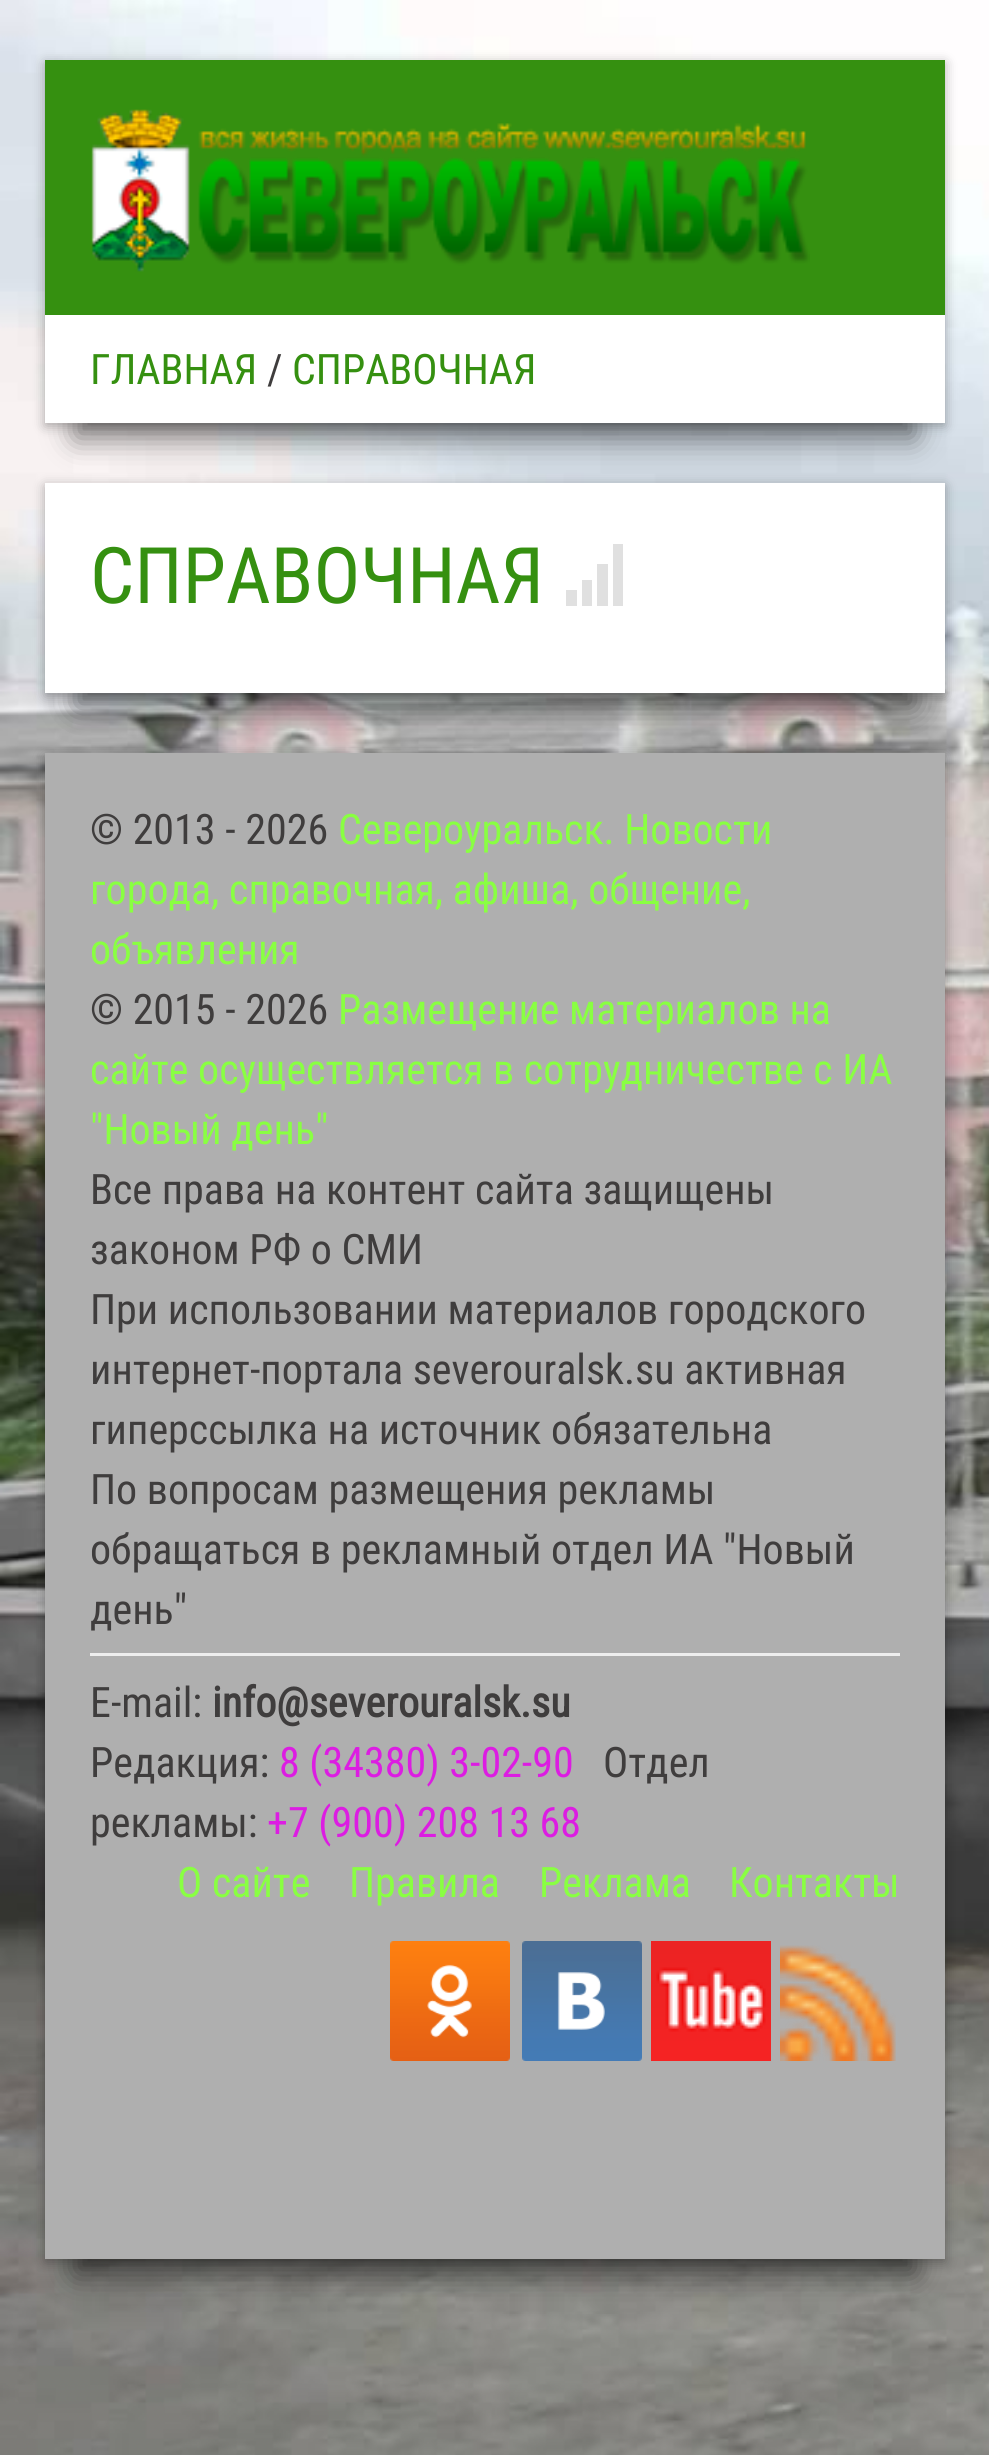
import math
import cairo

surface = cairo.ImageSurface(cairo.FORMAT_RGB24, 989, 2455)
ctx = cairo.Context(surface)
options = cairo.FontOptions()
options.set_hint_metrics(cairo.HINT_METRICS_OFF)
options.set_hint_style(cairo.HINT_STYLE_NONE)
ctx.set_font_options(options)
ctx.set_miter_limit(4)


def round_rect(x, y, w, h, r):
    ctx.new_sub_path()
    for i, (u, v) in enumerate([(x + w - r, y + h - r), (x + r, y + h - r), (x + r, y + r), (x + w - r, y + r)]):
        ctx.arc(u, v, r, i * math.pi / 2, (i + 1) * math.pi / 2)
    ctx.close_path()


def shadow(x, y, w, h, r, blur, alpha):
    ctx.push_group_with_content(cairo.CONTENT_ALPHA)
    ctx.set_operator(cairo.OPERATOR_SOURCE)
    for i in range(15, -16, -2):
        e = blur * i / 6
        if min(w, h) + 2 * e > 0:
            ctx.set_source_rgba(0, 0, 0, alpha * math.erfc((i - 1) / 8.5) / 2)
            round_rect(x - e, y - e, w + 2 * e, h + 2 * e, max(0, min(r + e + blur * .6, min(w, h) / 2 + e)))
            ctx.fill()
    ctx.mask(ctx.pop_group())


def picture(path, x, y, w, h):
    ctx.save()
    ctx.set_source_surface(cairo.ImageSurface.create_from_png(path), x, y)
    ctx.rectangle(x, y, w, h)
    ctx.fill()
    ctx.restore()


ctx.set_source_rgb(1, 1, 1)
ctx.paint()
picture("img1.png", 0, 0, 989, 2455)
ctx.set_source_rgb(0, 0, 0)
shadow(45, 63, 900, 363, 0, 6, 0.3)
shadow(75, 135, 840, 303, 0, 15, 0.5)
ctx.set_source_rgb(0.208, 0.565, 0.063)
ctx.rectangle(45, 60, 900, 255)
ctx.fill()
picture("img2.png", 91, 109, 719, 163)
ctx.set_source_rgb(1, 1, 1)
ctx.rectangle(45, 315, 900, 108)
ctx.fill()
ctx.select_font_face("Roboto Condensed")
ctx.set_font_size(42)
ctx.set_source_rgb(0.208, 0.565, 0.063)
ctx.move_to(90, 384)
ctx.show_text("ГЛАВНАЯ")
ctx.set_source_rgb(0.247, 0.239, 0.239)
ctx.move_to(267, 384)
ctx.show_text("/")
ctx.set_source_rgb(0.208, 0.565, 0.063)
ctx.move_to(292, 384)
ctx.show_text("СПРАВОЧНАЯ")
ctx.set_source_rgb(0, 0, 0)
shadow(45, 486, 900, 210, 0, 6, 0.3)
shadow(45, 756, 900, 1506, 0, 6, 0.3)
shadow(75, 828, 840, 1446, 0, 15, 0.5)
ctx.set_source_rgb(0.686, 0.686, 0.686)
ctx.rectangle(45, 753, 900, 1506)
ctx.fill()
ctx.set_source_rgb(0, 0, 0)
shadow(75, 558, 840, 150, 0, 15, 0.5)
ctx.set_source_rgb(1, 1, 1)
ctx.rectangle(45, 483, 900, 210)
ctx.fill()
ctx.set_font_size(78)
ctx.set_source_rgb(0.208, 0.565, 0.063)
ctx.move_to(90, 603)
ctx.show_text("СПРАВОЧНАЯ")
ctx.set_source_rgb(0.878, 0.878, 0.878)
ctx.new_path()
ctx.move_to(623, 606)
ctx.line_to(613, 606)
ctx.line_to(613, 544)
ctx.line_to(623, 544)
ctx.close_path()
ctx.move_to(608, 606)
ctx.line_to(597, 606)
ctx.line_to(597, 564)
ctx.line_to(608, 564)
ctx.close_path()
ctx.move_to(592, 606)
ctx.line_to(582, 606)
ctx.line_to(582, 580)
ctx.line_to(592, 580)
ctx.close_path()
ctx.move_to(577, 590)
ctx.line_to(566, 590)
ctx.line_to(566, 606)
ctx.line_to(577, 606)
ctx.close_path()
ctx.fill()
ctx.set_font_size(42)
ctx.set_source_rgb(0.247, 0.239, 0.239)
ctx.move_to(90, 844)
ctx.show_text("© 2013 - 2026")
ctx.set_source_rgb(0.537, 1, 0.259)
ctx.move_to(338, 844)
ctx.show_text("Североуральск. Новости")
ctx.move_to(90, 904)
ctx.show_text("города, справочная, афиша, общение,")
ctx.move_to(90, 964)
ctx.show_text("объявления")
ctx.set_source_rgb(0.247, 0.239, 0.239)
ctx.move_to(90, 1024)
ctx.show_text("© 2015 - 2026")
ctx.set_source_rgb(0.537, 1, 0.259)
ctx.move_to(338, 1024)
ctx.show_text("Размещение материалов на")
ctx.move_to(90, 1084)
ctx.show_text("сайте осуществляется в сотрудничестве с ИА")
ctx.move_to(90, 1144)
ctx.show_text("\"Новый день\"")
ctx.set_source_rgb(0.247, 0.239, 0.239)
ctx.move_to(90, 1204)
ctx.show_text("Все права на контент сайта защищены")
ctx.move_to(90, 1264)
ctx.show_text("законом РФ о СМИ")
ctx.move_to(90, 1324)
ctx.show_text("При использовании материалов городского")
ctx.move_to(90, 1384)
ctx.show_text("интернет-портала severouralsk.su активная")
ctx.move_to(90, 1444)
ctx.show_text("гиперссылка на источник обязательна")
ctx.move_to(90, 1504)
ctx.show_text("По вопросам размещения рекламы")
ctx.move_to(90, 1564)
ctx.show_text("обращаться в рекламный отдел ИА \"Новый")
ctx.move_to(90, 1624)
ctx.show_text("день\"")
ctx.set_source_rgb(0.933, 0.933, 0.933)
ctx.rectangle(90, 1653, 810, 3)
ctx.fill()
ctx.set_source_rgb(0.247, 0.239, 0.239)
ctx.move_to(90, 1717)
ctx.show_text("E-mail:")
ctx.select_font_face("Roboto Condensed", cairo.FONT_SLANT_NORMAL, cairo.FONT_WEIGHT_BOLD)
ctx.move_to(212, 1717)
ctx.show_text("info@severouralsk.su")
ctx.select_font_face("Roboto Condensed")
ctx.move_to(90, 1777)
ctx.show_text("Редакция:")
ctx.set_source_rgb(0.863, 0.114, 0.886)
ctx.move_to(279, 1777)
ctx.show_text("8 (34380) 3-02-90")
ctx.set_source_rgb(0.247, 0.239, 0.239)
ctx.move_to(603, 1777)
ctx.show_text("Отдел")
ctx.move_to(90, 1837)
ctx.show_text("рекламы:")
ctx.set_source_rgb(0.863, 0.114, 0.886)
ctx.move_to(267, 1837)
ctx.show_text("+7 (900) 208 13 68")
ctx.set_source_rgb(0.537, 1, 0.259)
ctx.move_to(177, 1897)
ctx.show_text("О сайте")
ctx.move_to(349, 1897)
ctx.show_text("Правила")
ctx.move_to(539, 1897)
ctx.show_text("Реклама")
ctx.move_to(729, 1897)
ctx.show_text("Контакты")
picture("img3.png", 390, 1941, 120, 120)
picture("img4.png", 522, 1941, 120, 120)
picture("img5.png", 651, 1941, 120, 120)
picture("img6.png", 780, 1945, 116, 116)
surface.write_to_png("page.png")
